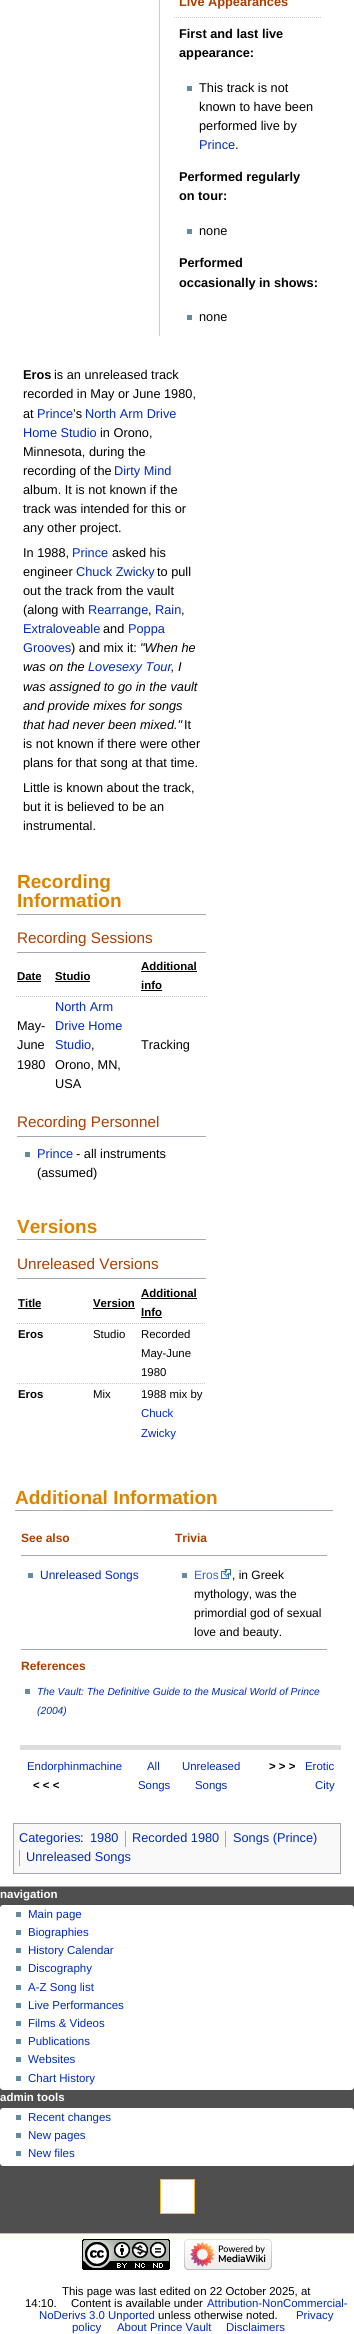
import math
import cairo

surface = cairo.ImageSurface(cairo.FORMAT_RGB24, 354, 2334)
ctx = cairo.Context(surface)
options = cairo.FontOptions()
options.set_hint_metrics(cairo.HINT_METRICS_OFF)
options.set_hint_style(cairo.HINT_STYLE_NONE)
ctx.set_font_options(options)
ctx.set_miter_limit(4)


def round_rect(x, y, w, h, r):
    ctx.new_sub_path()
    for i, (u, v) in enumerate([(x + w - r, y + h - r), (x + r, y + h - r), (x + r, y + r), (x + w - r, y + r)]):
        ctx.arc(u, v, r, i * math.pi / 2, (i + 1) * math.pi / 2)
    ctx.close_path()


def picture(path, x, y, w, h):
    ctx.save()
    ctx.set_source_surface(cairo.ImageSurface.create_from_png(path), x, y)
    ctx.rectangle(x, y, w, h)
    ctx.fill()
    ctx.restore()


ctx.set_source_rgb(0.31, 0.31, 0.31)
ctx.paint()
ctx.set_source_rgb(1, 1, 1)
ctx.rectangle(0, 0, 354, 1886)
ctx.fill()
ctx.set_source_rgb(0.667, 0.667, 0.667)
ctx.rectangle(0, 1886, 354, 1)
ctx.fill()
ctx.set_source_rgb(0.8, 0.8, 0.8)
ctx.rectangle(159, 0, 1, 336)
ctx.fill()
ctx.new_path()
ctx.move_to(174, 17.5)
ctx.line_to(322, 17.5)
ctx.set_line_width(1)
ctx.set_dash([1, 1])
ctx.stroke()
ctx.select_font_face("Liberation Sans", cairo.FONT_SLANT_NORMAL, cairo.FONT_WEIGHT_BOLD)
ctx.set_font_size(12.75)
ctx.set_source_rgb(0.671, 0.243, 0)
ctx.move_to(179, 6)
ctx.show_text("Live Appearances")
ctx.set_source_rgb(0, 0, 0)
ctx.move_to(179, 38)
ctx.show_text("First and last live")
ctx.move_to(179, 57)
ctx.show_text("appearance:")
ctx.set_source_rgb(0.388, 0.549, 0.612)
ctx.rectangle(187, 86, 5, 5)
ctx.fill()
ctx.select_font_face("Liberation Sans")
ctx.set_source_rgb(0, 0, 0)
ctx.move_to(199, 92)
ctx.show_text("This track is not")
ctx.move_to(199, 111)
ctx.show_text("known to have been")
ctx.move_to(199, 130)
ctx.show_text("performed live by")
ctx.set_source_rgb(0, 0.169, 0.722)
ctx.move_to(199, 149)
ctx.show_text("Prince")
ctx.set_source_rgb(0, 0, 0)
ctx.move_to(235, 149)
ctx.show_text(".")
ctx.select_font_face("Liberation Sans", cairo.FONT_SLANT_NORMAL, cairo.FONT_WEIGHT_BOLD)
ctx.move_to(179, 181)
ctx.show_text("Performed regularly")
ctx.move_to(179, 200)
ctx.show_text("on tour:")
ctx.set_source_rgb(0.388, 0.549, 0.612)
ctx.rectangle(187, 229, 5, 5)
ctx.fill()
ctx.select_font_face("Liberation Sans")
ctx.set_source_rgb(0, 0, 0)
ctx.move_to(199, 235)
ctx.show_text("none")
ctx.select_font_face("Liberation Sans", cairo.FONT_SLANT_NORMAL, cairo.FONT_WEIGHT_BOLD)
ctx.move_to(179, 267)
ctx.show_text("Performed")
ctx.move_to(179, 287)
ctx.show_text("occasionally in shows:")
ctx.set_source_rgb(0.388, 0.549, 0.612)
ctx.rectangle(187, 315, 5, 5)
ctx.fill()
ctx.select_font_face("Liberation Sans")
ctx.set_source_rgb(0, 0, 0)
ctx.move_to(199, 321)
ctx.show_text("none")
ctx.select_font_face("Liberation Sans", cairo.FONT_SLANT_NORMAL, cairo.FONT_WEIGHT_BOLD)
ctx.move_to(23, 379)
ctx.show_text("Eros")
ctx.select_font_face("Liberation Sans")
ctx.move_to(54, 379)
ctx.show_text("is an unreleased track")
ctx.move_to(23, 398)
ctx.show_text("recorded in May or June 1980,")
ctx.move_to(23, 418)
ctx.show_text("at")
ctx.set_source_rgb(0, 0.169, 0.722)
ctx.move_to(37, 418)
ctx.show_text("Prince")
ctx.set_source_rgb(0, 0, 0)
ctx.move_to(73, 418)
ctx.show_text("’s")
ctx.set_source_rgb(0, 0.169, 0.722)
ctx.move_to(85, 418)
ctx.show_text("North Arm Drive")
ctx.move_to(23, 437)
ctx.show_text("Home Studio")
ctx.set_source_rgb(0, 0, 0)
ctx.move_to(100, 437)
ctx.show_text("in Orono,")
ctx.move_to(23, 456)
ctx.show_text("Minnesota, during the")
ctx.move_to(23, 475)
ctx.show_text("recording of the")
ctx.set_source_rgb(0, 0.169, 0.722)
ctx.move_to(114, 475)
ctx.show_text("Dirty Mind")
ctx.set_source_rgb(0, 0, 0)
ctx.move_to(23, 494)
ctx.show_text("album. It is not known if the")
ctx.move_to(23, 513)
ctx.show_text("track was intended for this or")
ctx.move_to(23, 532)
ctx.show_text("any other project.")
ctx.move_to(23, 557)
ctx.show_text("In 1988,")
ctx.set_source_rgb(0, 0.169, 0.722)
ctx.move_to(72, 557)
ctx.show_text("Prince")
ctx.set_source_rgb(0, 0, 0)
ctx.move_to(112, 557)
ctx.show_text("asked his")
ctx.move_to(23, 576)
ctx.show_text("engineer")
ctx.set_source_rgb(0, 0.169, 0.722)
ctx.move_to(76, 576)
ctx.show_text("Chuck Zwicky")
ctx.set_source_rgb(0, 0, 0)
ctx.move_to(157, 576)
ctx.show_text("to pull")
ctx.move_to(23, 595)
ctx.show_text("out the track from the vault")
ctx.move_to(23, 614)
ctx.show_text("(along with")
ctx.set_source_rgb(0, 0.169, 0.722)
ctx.move_to(88, 614)
ctx.show_text("Rearrange")
ctx.set_source_rgb(0, 0, 0)
ctx.move_to(148, 614)
ctx.show_text(",")
ctx.set_source_rgb(0, 0.169, 0.722)
ctx.move_to(155, 614)
ctx.show_text("Rain")
ctx.set_source_rgb(0, 0, 0)
ctx.move_to(181, 614)
ctx.show_text(",")
ctx.set_source_rgb(0, 0.169, 0.722)
ctx.move_to(23, 633)
ctx.show_text("Extraloveable")
ctx.set_source_rgb(0, 0, 0)
ctx.move_to(103, 633)
ctx.show_text("and")
ctx.set_source_rgb(0, 0.169, 0.722)
ctx.move_to(128, 633)
ctx.show_text("Poppa")
ctx.move_to(23, 652)
ctx.show_text("Grooves")
ctx.set_source_rgb(0, 0, 0)
ctx.move_to(71, 652)
ctx.show_text(") and mix it:")
ctx.select_font_face("Liberation Sans", cairo.FONT_SLANT_ITALIC)
ctx.move_to(140, 652)
ctx.show_text("\"When he")
ctx.move_to(23, 671)
ctx.show_text("was on the")
ctx.set_source_rgb(0, 0.169, 0.722)
ctx.move_to(88, 671)
ctx.show_text("Lovesexy Tour")
ctx.set_source_rgb(0, 0, 0)
ctx.move_to(171, 671)
ctx.show_text(", I")
ctx.move_to(23, 691)
ctx.show_text("was assigned to go in the vault")
ctx.move_to(23, 710)
ctx.show_text("and provide mixes for songs")
ctx.move_to(23, 729)
ctx.show_text("that had never been mixed.\"")
ctx.select_font_face("Liberation Sans")
ctx.move_to(184, 729)
ctx.show_text("It")
ctx.move_to(23, 748)
ctx.show_text("is not known if there were other")
ctx.move_to(23, 767)
ctx.show_text("plans for that song at that time.")
ctx.move_to(23, 792)
ctx.show_text("Little is known about the track,")
ctx.move_to(23, 811)
ctx.show_text("but it is believed to be an")
ctx.move_to(23, 830)
ctx.show_text("instrumental.")
ctx.select_font_face("Liberation Sans", cairo.FONT_SLANT_NORMAL, cairo.FONT_WEIGHT_BOLD)
ctx.set_font_size(19)
ctx.set_source_rgb(0.871, 0.514, 0)
ctx.move_to(17, 888)
ctx.show_text("Recording")
ctx.move_to(17, 907)
ctx.show_text("Information")
ctx.set_source_rgb(0.635, 0.663, 0.694)
ctx.rectangle(17, 914, 189, 1)
ctx.fill()
ctx.select_font_face("Liberation Sans")
ctx.set_font_size(15.25)
ctx.set_source_rgb(0.671, 0.243, 0)
ctx.move_to(17, 943)
ctx.show_text("Recording Sessions")
ctx.set_source_rgb(0.635, 0.663, 0.694)
ctx.rectangle(17, 952, 189, 1)
ctx.fill()
ctx.select_font_face("Liberation Sans", cairo.FONT_SLANT_NORMAL, cairo.FONT_WEIGHT_BOLD)
ctx.set_font_size(11.4)
ctx.set_source_rgb(0, 0, 0)
ctx.move_to(17, 980)
ctx.show_text("Date")
ctx.rectangle(17, 981, 24, 1)
ctx.fill()
ctx.move_to(55, 980)
ctx.show_text("Studio")
ctx.rectangle(55, 981, 35, 1)
ctx.fill()
ctx.move_to(141, 970)
ctx.show_text("Additional")
ctx.rectangle(141, 971, 56, 1)
ctx.fill()
ctx.move_to(141, 989)
ctx.show_text("info")
ctx.rectangle(141, 990, 21, 1)
ctx.fill()
ctx.new_path()
ctx.move_to(16, 996.5)
ctx.line_to(54, 996.5)
ctx.set_source_rgb(0.8, 0.8, 0.8)
ctx.stroke()
ctx.select_font_face("Liberation Sans")
ctx.set_font_size(12.75)
ctx.set_source_rgb(0, 0, 0)
ctx.move_to(17, 1030)
ctx.show_text("May-")
ctx.move_to(17, 1049)
ctx.show_text("June")
ctx.move_to(17, 1069)
ctx.show_text("1980")
ctx.new_path()
ctx.move_to(54, 996.5)
ctx.line_to(140, 996.5)
ctx.set_source_rgb(0.8, 0.8, 0.8)
ctx.stroke()
ctx.set_source_rgb(0, 0.169, 0.722)
ctx.move_to(55, 1011)
ctx.show_text("North Arm")
ctx.move_to(55, 1030)
ctx.show_text("Drive Home")
ctx.move_to(55, 1049)
ctx.show_text("Studio")
ctx.set_source_rgb(0, 0, 0)
ctx.move_to(91, 1049)
ctx.show_text(",")
ctx.move_to(55, 1069)
ctx.show_text("Orono, MN,")
ctx.move_to(55, 1088)
ctx.show_text("USA")
ctx.new_path()
ctx.move_to(140, 996.5)
ctx.line_to(207, 996.5)
ctx.set_source_rgb(0.8, 0.8, 0.8)
ctx.stroke()
ctx.set_source_rgb(0, 0, 0)
ctx.move_to(141, 1049)
ctx.show_text("Tracking")
ctx.set_font_size(15.25)
ctx.set_source_rgb(0.671, 0.243, 0)
ctx.move_to(17, 1127)
ctx.show_text("Recording Personnel")
ctx.set_source_rgb(0.635, 0.663, 0.694)
ctx.rectangle(17, 1136, 189, 1)
ctx.fill()
ctx.set_source_rgb(0.388, 0.549, 0.612)
ctx.rectangle(25, 1152, 5, 5)
ctx.fill()
ctx.set_font_size(12.75)
ctx.set_source_rgb(0, 0.169, 0.722)
ctx.move_to(37, 1158)
ctx.show_text("Prince")
ctx.set_source_rgb(0, 0, 0)
ctx.move_to(76, 1158)
ctx.show_text("- all instruments")
ctx.move_to(37, 1177)
ctx.show_text("(assumed)")
ctx.select_font_face("Liberation Sans", cairo.FONT_SLANT_NORMAL, cairo.FONT_WEIGHT_BOLD)
ctx.set_font_size(19)
ctx.set_source_rgb(0.871, 0.514, 0)
ctx.move_to(17, 1233)
ctx.show_text("Versions")
ctx.set_source_rgb(0.635, 0.663, 0.694)
ctx.rectangle(17, 1239, 189, 1)
ctx.fill()
ctx.select_font_face("Liberation Sans")
ctx.set_font_size(15.25)
ctx.set_source_rgb(0.671, 0.243, 0)
ctx.move_to(17, 1269)
ctx.show_text("Unreleased Versions")
ctx.set_source_rgb(0.635, 0.663, 0.694)
ctx.rectangle(17, 1278, 189, 1)
ctx.fill()
ctx.select_font_face("Liberation Sans", cairo.FONT_SLANT_NORMAL, cairo.FONT_WEIGHT_BOLD)
ctx.set_font_size(11.4)
ctx.set_source_rgb(0, 0, 0)
ctx.move_to(18, 1307)
ctx.show_text("Title")
ctx.rectangle(18, 1308, 23, 1)
ctx.fill()
ctx.move_to(93, 1307)
ctx.show_text("Version")
ctx.rectangle(93, 1308, 42, 1)
ctx.fill()
ctx.move_to(141, 1297)
ctx.show_text("Additional")
ctx.rectangle(141, 1298, 56, 1)
ctx.fill()
ctx.move_to(141, 1316)
ctx.show_text("Info")
ctx.rectangle(141, 1317, 21, 1)
ctx.fill()
ctx.new_path()
ctx.move_to(17, 1323.5)
ctx.line_to(92, 1323.5)
ctx.set_source_rgb(0.8, 0.8, 0.8)
ctx.stroke()
ctx.set_source_rgb(0, 0, 0)
ctx.move_to(18, 1338)
ctx.show_text("Eros")
ctx.new_path()
ctx.move_to(92, 1323.5)
ctx.line_to(140, 1323.5)
ctx.set_source_rgb(0.8, 0.8, 0.8)
ctx.stroke()
ctx.select_font_face("Liberation Sans")
ctx.set_source_rgb(0, 0, 0)
ctx.move_to(93, 1338)
ctx.show_text("Studio")
ctx.new_path()
ctx.move_to(140, 1323.5)
ctx.line_to(206, 1323.5)
ctx.set_source_rgb(0.8, 0.8, 0.8)
ctx.stroke()
ctx.set_source_rgb(0, 0, 0)
ctx.move_to(141, 1338)
ctx.show_text("Recorded")
ctx.move_to(141, 1357)
ctx.show_text("May-June")
ctx.move_to(141, 1376)
ctx.show_text("1980")
ctx.new_path()
ctx.move_to(17, 1383.5)
ctx.line_to(92, 1383.5)
ctx.set_source_rgb(0.8, 0.8, 0.8)
ctx.stroke()
ctx.select_font_face("Liberation Sans", cairo.FONT_SLANT_NORMAL, cairo.FONT_WEIGHT_BOLD)
ctx.set_source_rgb(0, 0, 0)
ctx.move_to(18, 1398)
ctx.show_text("Eros")
ctx.new_path()
ctx.move_to(92, 1383.5)
ctx.line_to(140, 1383.5)
ctx.set_source_rgb(0.8, 0.8, 0.8)
ctx.stroke()
ctx.select_font_face("Liberation Sans")
ctx.set_source_rgb(0, 0, 0)
ctx.move_to(93, 1398)
ctx.show_text("Mix")
ctx.new_path()
ctx.move_to(140, 1383.5)
ctx.line_to(206, 1383.5)
ctx.set_source_rgb(0.8, 0.8, 0.8)
ctx.stroke()
ctx.set_source_rgb(0, 0, 0)
ctx.move_to(141, 1398)
ctx.show_text("1988 mix by")
ctx.set_source_rgb(0, 0.169, 0.722)
ctx.move_to(141, 1417)
ctx.show_text("Chuck")
ctx.move_to(141, 1437)
ctx.show_text("Zwicky")
ctx.select_font_face("Liberation Sans", cairo.FONT_SLANT_NORMAL, cairo.FONT_WEIGHT_BOLD)
ctx.set_font_size(19)
ctx.set_source_rgb(0.871, 0.514, 0)
ctx.move_to(15, 1504)
ctx.show_text("Additional Information")
ctx.set_source_rgb(0.635, 0.663, 0.694)
ctx.rectangle(15, 1510, 318, 1)
ctx.fill()
ctx.set_font_size(12)
ctx.set_source_rgb(0.671, 0.243, 0)
ctx.move_to(21, 1542)
ctx.show_text("See also")
ctx.move_to(175, 1542)
ctx.show_text("Trivia")
ctx.set_source_rgb(0.635, 0.663, 0.694)
ctx.rectangle(21, 1555, 306, 1)
ctx.fill()
ctx.set_source_rgb(0.388, 0.549, 0.612)
ctx.rectangle(28, 1573, 5, 5)
ctx.fill()
ctx.select_font_face("Liberation Sans")
ctx.set_source_rgb(0, 0.169, 0.722)
ctx.move_to(40, 1579)
ctx.show_text("Unreleased Songs")
ctx.set_source_rgb(0.388, 0.549, 0.612)
ctx.rectangle(182, 1573, 5, 5)
ctx.fill()
ctx.set_source_rgb(0.2, 0.4, 0.733)
ctx.move_to(194, 1579)
ctx.show_text("Eros")
picture("img1.png", 221, 1569, 10, 10)
ctx.set_source_rgb(0, 0, 0)
ctx.move_to(232, 1579)
ctx.show_text(", in Greek")
ctx.move_to(194, 1598)
ctx.show_text("mythology, was the")
ctx.move_to(194, 1617)
ctx.show_text("primordial god of sexual")
ctx.move_to(194, 1636)
ctx.show_text("love and beauty.")
ctx.set_source_rgb(0.635, 0.663, 0.694)
ctx.rectangle(21, 1649, 306, 1)
ctx.fill()
ctx.select_font_face("Liberation Sans", cairo.FONT_SLANT_NORMAL, cairo.FONT_WEIGHT_BOLD)
ctx.set_source_rgb(0.671, 0.243, 0)
ctx.move_to(21, 1670)
ctx.show_text("References")
ctx.set_source_rgb(0.388, 0.549, 0.612)
ctx.rectangle(25, 1689, 5, 5)
ctx.fill()
ctx.select_font_face("Liberation Sans", cairo.FONT_SLANT_ITALIC)
ctx.set_font_size(10.3)
ctx.set_source_rgb(0, 0.169, 0.722)
ctx.move_to(37, 1695)
ctx.show_text("The Vault: The Definitive Guide to the Musical World of Prince")
ctx.move_to(37, 1714)
ctx.show_text("(2004)")
ctx.set_source_rgb(0.867, 0.867, 0.867)
ctx.rectangle(20, 1745, 321, 5)
ctx.fill()
ctx.select_font_face("Liberation Sans")
ctx.set_font_size(11.4)
ctx.set_source_rgb(0, 0.169, 0.722)
ctx.move_to(27, 1770)
ctx.show_text("Endorphinmachine")
ctx.select_font_face("Liberation Sans", cairo.FONT_SLANT_NORMAL, cairo.FONT_WEIGHT_BOLD)
ctx.set_source_rgb(0, 0, 0)
ctx.move_to(33, 1789)
ctx.show_text("< < <")
ctx.select_font_face("Liberation Sans")
ctx.set_source_rgb(0, 0.169, 0.722)
ctx.move_to(147, 1770)
ctx.show_text("All")
ctx.move_to(138, 1789)
ctx.show_text("Songs")
ctx.move_to(182, 1770)
ctx.show_text("Unreleased")
ctx.move_to(195, 1789)
ctx.show_text("Songs")
ctx.select_font_face("Liberation Sans", cairo.FONT_SLANT_NORMAL, cairo.FONT_WEIGHT_BOLD)
ctx.set_source_rgb(0, 0, 0)
ctx.move_to(269, 1770)
ctx.show_text("> > >")
ctx.select_font_face("Liberation Sans")
ctx.set_source_rgb(0, 0.169, 0.722)
ctx.move_to(305, 1770)
ctx.show_text("Erotic")
ctx.move_to(315, 1789)
ctx.show_text("City")
ctx.set_source_rgb(0.973, 0.976, 0.98)
ctx.rectangle(13.5, 1823.5, 327, 50)
ctx.fill_preserve()
ctx.set_source_rgb(0.635, 0.663, 0.694)
ctx.set_dash([])
ctx.stroke()
ctx.set_font_size(12.75)
ctx.set_source_rgb(0, 0.169, 0.722)
ctx.move_to(19, 1842)
ctx.show_text("Categories")
ctx.move_to(90, 1842)
ctx.show_text("1980")
ctx.set_source_rgb(0.635, 0.663, 0.694)
ctx.rectangle(125, 1831, 1, 16)
ctx.fill()
ctx.set_source_rgb(0, 0.169, 0.722)
ctx.move_to(132, 1842)
ctx.show_text("Recorded 1980")
ctx.set_source_rgb(0.635, 0.663, 0.694)
ctx.rectangle(225, 1831, 1, 16)
ctx.fill()
ctx.set_source_rgb(0, 0.169, 0.722)
ctx.move_to(233, 1842)
ctx.show_text("Songs (Prince)")
ctx.set_source_rgb(0.635, 0.663, 0.694)
ctx.rectangle(19, 1850, 1, 16)
ctx.fill()
ctx.set_source_rgb(0, 0.169, 0.722)
ctx.move_to(26, 1861)
ctx.show_text("Unreleased Songs")
ctx.set_source_rgb(0, 0, 0)
ctx.move_to(80, 1842)
ctx.show_text(":")
ctx.select_font_face("Liberation Sans", cairo.FONT_SLANT_NORMAL, cairo.FONT_WEIGHT_BOLD)
ctx.set_font_size(11.5)
ctx.set_source_rgb(1, 1, 1)
ctx.move_to(0, 1898)
ctx.show_text("navigation")
round_rect(0, 1905, 354, 185, 3)
ctx.fill()
ctx.set_source_rgb(0.388, 0.549, 0.612)
ctx.rectangle(16, 1912, 5, 5)
ctx.fill()
ctx.select_font_face("Liberation Sans")
ctx.set_source_rgb(0, 0.169, 0.722)
ctx.move_to(28, 1918)
ctx.show_text("Main page")
ctx.set_source_rgb(0.388, 0.549, 0.612)
ctx.rectangle(16, 1930, 5, 5)
ctx.fill()
ctx.set_source_rgb(0, 0.169, 0.722)
ctx.move_to(28, 1936)
ctx.show_text("Biographies")
ctx.set_source_rgb(0.388, 0.549, 0.612)
ctx.rectangle(16, 1948, 5, 5)
ctx.fill()
ctx.set_source_rgb(0, 0.169, 0.722)
ctx.move_to(28, 1954)
ctx.show_text("History Calendar")
ctx.set_source_rgb(0.388, 0.549, 0.612)
ctx.rectangle(16, 1966, 5, 5)
ctx.fill()
ctx.set_source_rgb(0, 0.169, 0.722)
ctx.move_to(28, 1972)
ctx.show_text("Discography")
ctx.set_source_rgb(0.388, 0.549, 0.612)
ctx.rectangle(16, 1985, 5, 5)
ctx.fill()
ctx.set_source_rgb(0, 0.169, 0.722)
ctx.move_to(28, 1991)
ctx.show_text("A-Z Song list")
ctx.set_source_rgb(0.388, 0.549, 0.612)
ctx.rectangle(16, 2003, 5, 5)
ctx.fill()
ctx.set_source_rgb(0, 0.169, 0.722)
ctx.move_to(28, 2009)
ctx.show_text("Live Performances")
ctx.set_source_rgb(0.388, 0.549, 0.612)
ctx.rectangle(16, 2021, 5, 5)
ctx.fill()
ctx.set_source_rgb(0, 0.169, 0.722)
ctx.move_to(28, 2027)
ctx.show_text("Films & Videos")
ctx.set_source_rgb(0.388, 0.549, 0.612)
ctx.rectangle(16, 2039, 5, 5)
ctx.fill()
ctx.set_source_rgb(0, 0.169, 0.722)
ctx.move_to(28, 2045)
ctx.show_text("Publications")
ctx.set_source_rgb(0.388, 0.549, 0.612)
ctx.rectangle(16, 2057, 5, 5)
ctx.fill()
ctx.set_source_rgb(0, 0.169, 0.722)
ctx.move_to(28, 2063)
ctx.show_text("Websites")
ctx.set_source_rgb(0.388, 0.549, 0.612)
ctx.rectangle(16, 2076, 5, 5)
ctx.fill()
ctx.set_source_rgb(0, 0.169, 0.722)
ctx.move_to(28, 2082)
ctx.show_text("Chart History")
ctx.select_font_face("Liberation Sans", cairo.FONT_SLANT_NORMAL, cairo.FONT_WEIGHT_BOLD)
ctx.set_source_rgb(1, 1, 1)
ctx.move_to(0, 2101)
ctx.show_text("admin tools")
round_rect(0, 2108, 354, 58, 3)
ctx.fill()
ctx.set_source_rgb(0.388, 0.549, 0.612)
ctx.rectangle(16, 2115, 5, 5)
ctx.fill()
ctx.select_font_face("Liberation Sans")
ctx.set_source_rgb(0, 0.169, 0.722)
ctx.move_to(28, 2121)
ctx.show_text("Recent changes")
ctx.set_source_rgb(0.388, 0.549, 0.612)
ctx.rectangle(16, 2133, 5, 5)
ctx.fill()
ctx.set_source_rgb(0, 0.169, 0.722)
ctx.move_to(28, 2139)
ctx.show_text("New pages")
ctx.set_source_rgb(0.388, 0.549, 0.612)
ctx.rectangle(16, 2151, 5, 5)
ctx.fill()
ctx.set_source_rgb(0, 0.169, 0.722)
ctx.move_to(28, 2157)
ctx.show_text("New files")
ctx.set_source_rgb(1, 1, 1)
ctx.rectangle(160.5, 2179.5, 34, 34)
ctx.fill_preserve()
ctx.set_source_rgb(0.98, 0.741, 0.137)
ctx.stroke()
ctx.set_source_rgb(1, 1, 1)
ctx.rectangle(0, 2234, 354, 100)
ctx.fill()
ctx.set_source_rgb(0.98, 0.741, 0.137)
ctx.rectangle(0, 2233, 354, 1)
ctx.fill()
picture("img2.png", 82, 2239, 88, 31)
picture("img3.png", 184, 2239, 88, 31)
ctx.set_font_size(11.4)
ctx.set_source_rgb(0, 0, 0)
ctx.move_to(62, 2295)
ctx.show_text("This page was last edited on 22 October 2025, at")
ctx.move_to(25, 2307)
ctx.show_text("14:10.")
ctx.move_to(71, 2307)
ctx.show_text("Content is available under")
ctx.set_source_rgb(0, 0.169, 0.722)
ctx.move_to(207, 2307)
ctx.show_text("Attribution-NonCommercial-")
ctx.move_to(39, 2319)
ctx.show_text("NoDerivs 3.0 Unported")
ctx.set_source_rgb(0, 0, 0)
ctx.move_to(158, 2319)
ctx.show_text("unless otherwise noted.")
ctx.set_source_rgb(0, 0.169, 0.722)
ctx.move_to(296, 2319)
ctx.show_text("Privacy")
ctx.move_to(72, 2331)
ctx.show_text("policy")
ctx.move_to(117, 2331)
ctx.show_text("About Prince Vault")
ctx.move_to(226, 2331)
ctx.show_text("Disclaimers")
surface.write_to_png("page.png")
